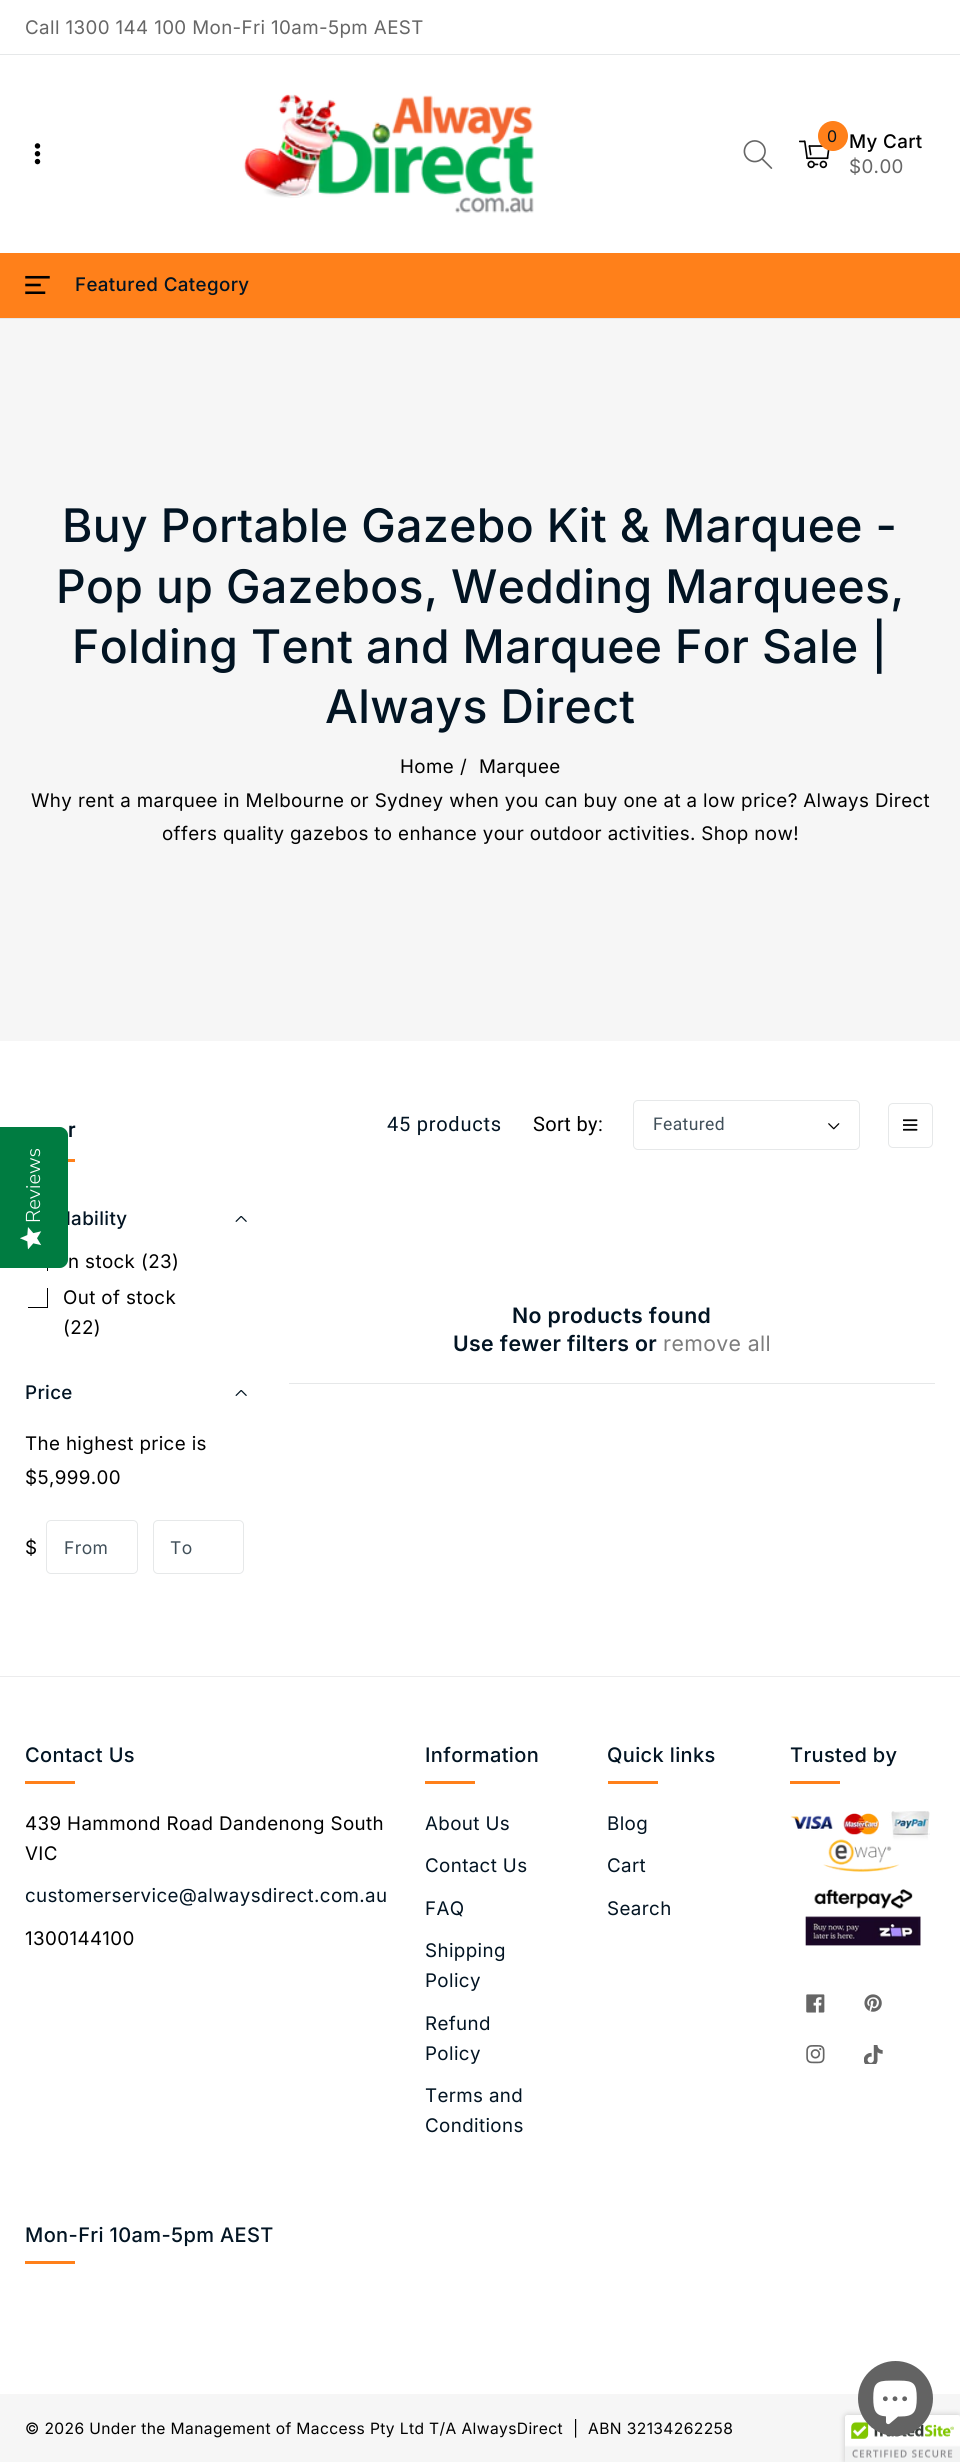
import math
import cairo

surface = cairo.ImageSurface(cairo.FORMAT_RGB24, 960, 2462)
ctx = cairo.Context(surface)
options = cairo.FontOptions()
options.set_hint_metrics(cairo.HINT_METRICS_OFF)
options.set_hint_style(cairo.HINT_STYLE_NONE)
ctx.set_font_options(options)
ctx.set_miter_limit(4)


def spaced_text(x, y, s, letter, word):
    ctx.move_to(x, y)
    for ch in s:
        ctx.show_text(ch)
        ctx.rel_move_to(letter + word * (ch == ' '), 0)


def round_rect(x, y, w, h, r):
    ctx.new_sub_path()
    for i, (u, v) in enumerate([(x + w - r, y + h - r), (x + r, y + h - r), (x + r, y + r), (x + w - r, y + r)]):
        ctx.arc(u, v, r, i * math.pi / 2, (i + 1) * math.pi / 2)
    ctx.close_path()


def shadow(x, y, w, h, r, blur, alpha):
    ctx.push_group_with_content(cairo.CONTENT_ALPHA)
    ctx.set_operator(cairo.OPERATOR_SOURCE)
    for i in range(15, -16, -2):
        e = blur * i / 6
        if min(w, h) + 2 * e > 0:
            ctx.set_source_rgba(0, 0, 0, alpha * math.erfc((i - 1) / 8.5) / 2)
            round_rect(x - e, y - e, w + 2 * e, h + 2 * e, max(0, min(r + e + blur * .6, min(w, h) / 2 + e)))
            ctx.fill()
    ctx.mask(ctx.pop_group())


def picture(path, x, y, w, h):
    ctx.save()
    ctx.set_source_surface(cairo.ImageSurface.create_from_png(path), x, y)
    ctx.rectangle(x, y, w, h)
    ctx.fill()
    ctx.restore()


ctx.set_source_rgb(1, 1, 1)
ctx.paint()
ctx.set_source_rgb(0.902, 0.91, 0.914)
ctx.rectangle(0, 54, 960, 1)
ctx.fill()
ctx.select_font_face("Inter")
ctx.set_font_size(18.75)
ctx.set_source_rgb(0.4, 0.4, 0.4)
spaced_text(25, 34, "Call 1300 144 100 Mon-Fri 10am-5pm AEST", 0.38, 0)
ctx.set_source_rgb(0.902, 0.91, 0.914)
ctx.rectangle(0, 318, 960, 1)
ctx.fill()
picture("img1.png", 34, 143, 7, 22)
picture("img2.png", 243, 94, 291, 119)
picture("img3.png", 743, 140, 30, 29)
picture("img4.png", 799, 140, 31, 29)
ctx.set_source_rgb(1, 0.502, 0.102)
ctx.arc(833, 136, 15, 0, 2 * math.pi)
ctx.fill()
ctx.set_font_size(16)
ctx.set_source_rgb(0.008, 0.082, 0.137)
spaced_text(827, 142, "0", 0.38, 0)
ctx.select_font_face("Inter Medium")
ctx.set_font_size(18.75)
ctx.set_source_rgb(0, 0, 0)
spaced_text(849, 148, "My Cart", 0.38, 0)
ctx.select_font_face("Inter")
ctx.set_source_rgb(0.4, 0.4, 0.4)
spaced_text(849, 173, "$0.00", 0.38, 0)
ctx.set_source_rgb(1, 0.502, 0.102)
ctx.rectangle(0, 253, 960, 65)
ctx.fill()
picture("img5.png", 25, 275, 25, 20)
ctx.select_font_face("Inter Medium")
ctx.set_source_rgb(0.008, 0.082, 0.137)
spaced_text(75, 291, "Featured Category", 0.38, 0)
ctx.set_source_rgb(0.961, 0.961, 0.961)
ctx.rectangle(0, 319, 960, 722)
ctx.fill()
ctx.set_font_size(46.25)
ctx.set_source_rgb(0.008, 0.082, 0.137)
spaced_text(62, 542, "Buy Portable Gazebo Kit & Marquee -", 0.38, 0)
spaced_text(56, 603, "Pop up Gazebos, Wedding Marquees,", 0.38, 0)
spaced_text(72, 663, "Folding Tent and Marquee For Sale |", 0.38, 0)
spaced_text(325, 723, "Always Direct", 0.38, 0)
ctx.select_font_face("Inter")
ctx.set_font_size(18.75)
ctx.set_source_rgb(0, 0, 0)
spaced_text(400, 773, "Home", 0.38, 0)
spaced_text(460, 773, "/", 0.38, 0)
spaced_text(479, 773, "Marquee", 0.38, 0)
spaced_text(31, 807, "Why rent a marquee in Melbourne or Sydney when you can buy one at a low price? Always Direct", 0.38, 0)
spaced_text(162, 840, "offers quality gazebos to enhance your outdoor activities. Shop now!", 0.38, 0)
ctx.select_font_face("Roboto")
ctx.set_font_size(20)
ctx.set_source_rgb(0.008, 0.082, 0.137)
spaced_text(387, 1131, "45 products", 0.75, 0)
ctx.set_source_rgb(0, 0, 0)
spaced_text(533, 1131, "Sort by:", 0.38, 0)
round_rect(633.5, 1100.5, 226, 49, 4.5)
ctx.set_source_rgb(0.902, 0.91, 0.914)
ctx.set_line_width(1)
ctx.stroke()
ctx.set_font_size(17.5)
ctx.set_source_rgb(0.255, 0.314, 0.353)
spaced_text(653, 1130, "Featured", 0.38, 0)
picture("img6.png", 828, 1123, 12, 7)
round_rect(888.5, 1103.5, 44, 44, 4.5)
ctx.set_source_rgb(0.902, 0.91, 0.914)
ctx.stroke()
picture("img7.png", 903, 1119, 15, 12)
ctx.select_font_face("Roboto Medium")
ctx.set_font_size(21.25)
ctx.set_source_rgb(0.008, 0.082, 0.137)
spaced_text(68, 1137, "r", 0.38, 0)
ctx.set_source_rgb(1, 0.502, 0.102)
ctx.rectangle(68, 1159, 7, 3)
ctx.fill()
ctx.select_font_face("Inter Medium")
ctx.set_font_size(18.75)
ctx.set_source_rgb(0.008, 0.082, 0.137)
spaced_text(66, 1225, "lability", 0.38, 0)
picture("img8.png", 235, 1216, 12, 6)
ctx.save()
ctx.rectangle(28, 1251, 20, 20)
ctx.clip()
ctx.rectangle(27.5, 1251.5, 20, 20)
ctx.set_source_rgb(0, 0, 0)
ctx.stroke()
ctx.restore()
ctx.select_font_face("Inter")
ctx.set_source_rgb(0, 0, 0)
spaced_text(68, 1268, "n stock (23)", 0.38, 0)
ctx.save()
ctx.rectangle(28, 1288, 20, 20)
ctx.clip()
ctx.rectangle(27.5, 1287.5, 20, 20)
ctx.stroke()
ctx.restore()
spaced_text(63, 1304, "Out of stock", 0.38, 0)
spaced_text(63, 1334, "(22)", 0.38, 0)
ctx.select_font_face("Inter Medium")
ctx.set_source_rgb(0.008, 0.082, 0.137)
spaced_text(25, 1399, "Price", 0.38, 0)
picture("img9.png", 235, 1390, 12, 6)
ctx.select_font_face("Inter")
ctx.set_source_rgb(0, 0, 0)
spaced_text(25, 1450, "The highest price is", 0.38, 0)
spaced_text(25, 1484, "$5,999.00", 0.38, 0)
spaced_text(25, 1554, "$", 0.38, 0)
round_rect(46.5, 1520.5, 91, 53, 4.5)
ctx.set_source_rgb(0.902, 0.91, 0.914)
ctx.stroke()
ctx.set_font_size(17.5)
ctx.set_source_rgb(0.255, 0.314, 0.353)
spaced_text(64, 1554, "From", 0.38, 0)
round_rect(153.5, 1520.5, 90, 53, 4.5)
ctx.set_source_rgb(0.902, 0.91, 0.914)
ctx.stroke()
ctx.set_source_rgb(0.255, 0.314, 0.353)
spaced_text(170, 1554, "To", 0.38, 0)
ctx.set_source_rgb(0.902, 0.91, 0.914)
ctx.rectangle(289, 1383, 646, 1)
ctx.fill()
ctx.select_font_face("Inter SemiBold")
ctx.set_font_size(21.25)
ctx.set_source_rgb(0.008, 0.082, 0.137)
spaced_text(512, 1323, "No products found", 0.38, 0)
spaced_text(453, 1351, "Use fewer filters or", 0.38, 0)
ctx.select_font_face("Inter")
ctx.set_source_rgb(0.49, 0.49, 0.49)
spaced_text(663, 1351, "remove all", 0.38, 0)
ctx.set_source_rgb(0, 0.486, 0.255)
ctx.new_path()
ctx.move_to(0, 1268)
ctx.line_to(0, 1127)
ctx.line_to(60, 1127)
ctx.curve_to(64, 1127, 68, 1131, 68, 1135)
ctx.line_to(68, 1260)
ctx.curve_to(68, 1264, 64, 1268, 60, 1268)
ctx.close_path()
ctx.fill()
ctx.select_font_face("Nunito Sans Light")
ctx.set_font_size(20)
ctx.set_source_rgb(0.996, 0.996, 0.996)
ctx.save()
ctx.translate(40, 1223)
ctx.rotate(-90 * math.pi / 180)
ctx.move_to(0, 0)
ctx.show_text("Reviews")
ctx.restore()
picture("img10.png", 20, 1227, 22, 23)
ctx.set_source_rgb(0.922, 0.925, 0.929)
ctx.rectangle(0, 1676, 960, 1)
ctx.fill()
ctx.select_font_face("Inter Medium")
ctx.set_source_rgb(0.008, 0.082, 0.137)
spaced_text(25, 1762, "Contact Us", 0.38, 0)
ctx.set_source_rgb(1, 0.502, 0.102)
ctx.rectangle(25, 1781, 50, 3)
ctx.fill()
ctx.select_font_face("Inter")
ctx.set_font_size(18.75)
ctx.set_source_rgb(0, 0, 0)
spaced_text(25, 1830, "439 Hammond Road Dandenong South", 0.38, 0)
spaced_text(25, 1860, "VIC", 0.38, 0)
ctx.set_source_rgb(0.008, 0.082, 0.137)
spaced_text(25, 1902, "customerservice@alwaysdirect.com.au", 0.38, 0)
ctx.set_source_rgb(0, 0, 0)
spaced_text(25, 1945, "1300144100", 0.38, 0)
ctx.select_font_face("Inter Medium")
ctx.set_font_size(20)
ctx.set_source_rgb(0.008, 0.082, 0.137)
spaced_text(425, 1762, "Information", 0.38, 0)
ctx.set_source_rgb(1, 0.502, 0.102)
ctx.rectangle(425, 1781, 50, 3)
ctx.fill()
ctx.select_font_face("Inter")
ctx.set_font_size(18.75)
ctx.set_source_rgb(0.008, 0.082, 0.137)
spaced_text(425, 1830, "About Us", 0.38, 0)
spaced_text(425, 1872, "Contact Us", 0.38, 0)
spaced_text(425, 1915, "FAQ", 0.38, 0)
spaced_text(425, 1957, "Shipping", 0.38, 0)
spaced_text(425, 1987, "Policy", 0.38, 0)
spaced_text(425, 2030, "Refund", 0.38, 0)
spaced_text(425, 2060, "Policy", 0.38, 0)
spaced_text(425, 2102, "Terms and", 0.38, 0)
spaced_text(425, 2132, "Conditions", 0.38, 0)
ctx.select_font_face("Inter Medium")
ctx.set_font_size(20)
spaced_text(607, 1762, "Quick links", 0.38, 0)
ctx.set_source_rgb(1, 0.502, 0.102)
ctx.rectangle(608, 1781, 50, 3)
ctx.fill()
ctx.select_font_face("Inter")
ctx.set_font_size(18.75)
ctx.set_source_rgb(0.008, 0.082, 0.137)
spaced_text(607, 1830, "Blog", 0.38, 0)
spaced_text(607, 1872, "Cart", 0.38, 0)
spaced_text(607, 1915, "Search", 0.38, 0)
ctx.select_font_face("Inter Medium")
ctx.set_font_size(20)
spaced_text(790, 1762, "Trusted by", 0.38, 0)
ctx.set_source_rgb(1, 0.502, 0.102)
ctx.rectangle(790, 1781, 50, 3)
ctx.fill()
picture("img11.png", 790, 1811, 140, 61)
picture("img12.png", 805, 1889, 116, 57)
picture("img13.png", 806, 1994, 19, 19)
picture("img14.png", 864, 1994, 18, 18)
picture("img15.png", 806, 2045, 19, 19)
picture("img16.png", 864, 2045, 19, 19)
ctx.set_source_rgb(0.008, 0.082, 0.137)
spaced_text(25, 2242, "Mon-Fri 10am-5pm AEST", 0.38, 0)
ctx.set_source_rgb(1, 0.502, 0.102)
ctx.rectangle(25, 2261, 50, 3)
ctx.fill()
ctx.set_source_rgb(0.961, 0.961, 0.961)
ctx.rectangle(0, 2394, 960, 68)
ctx.fill()
ctx.select_font_face("Inter")
ctx.set_font_size(15.6)
ctx.set_source_rgb(0, 0, 0)
spaced_text(25, 2434, "© 2026 Under the Management of Maccess Pty Ltd T/A AlwaysDirect", 0.38, 0)
spaced_text(573, 2434, "|  ABN 32134262258", 0.38, 0)
ctx.set_source_rgb(0, 0, 0)
shadow(845, 2415, 115, 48, 2.5, 3, 0.2)
ctx.set_source_rgb(1, 1, 1)
ctx.new_path()
ctx.move_to(847.5, 2415)
ctx.line_to(960, 2415)
ctx.line_to(960, 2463)
ctx.line_to(845, 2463)
ctx.line_to(845, 2417.5)
ctx.curve_to(845, 2416, 846, 2415, 847.5, 2415)
ctx.close_path()
ctx.fill()
picture("img18.png", 845, 2415, 115, 47)
ctx.set_source_rgb(0.388, 0.388, 0.388)
ctx.arc(895.5, 2398.5, 37.5, 0, 2 * math.pi)
ctx.fill()
picture("img17.png", 873, 2380, 44, 45)
surface.write_to_png("page.png")
